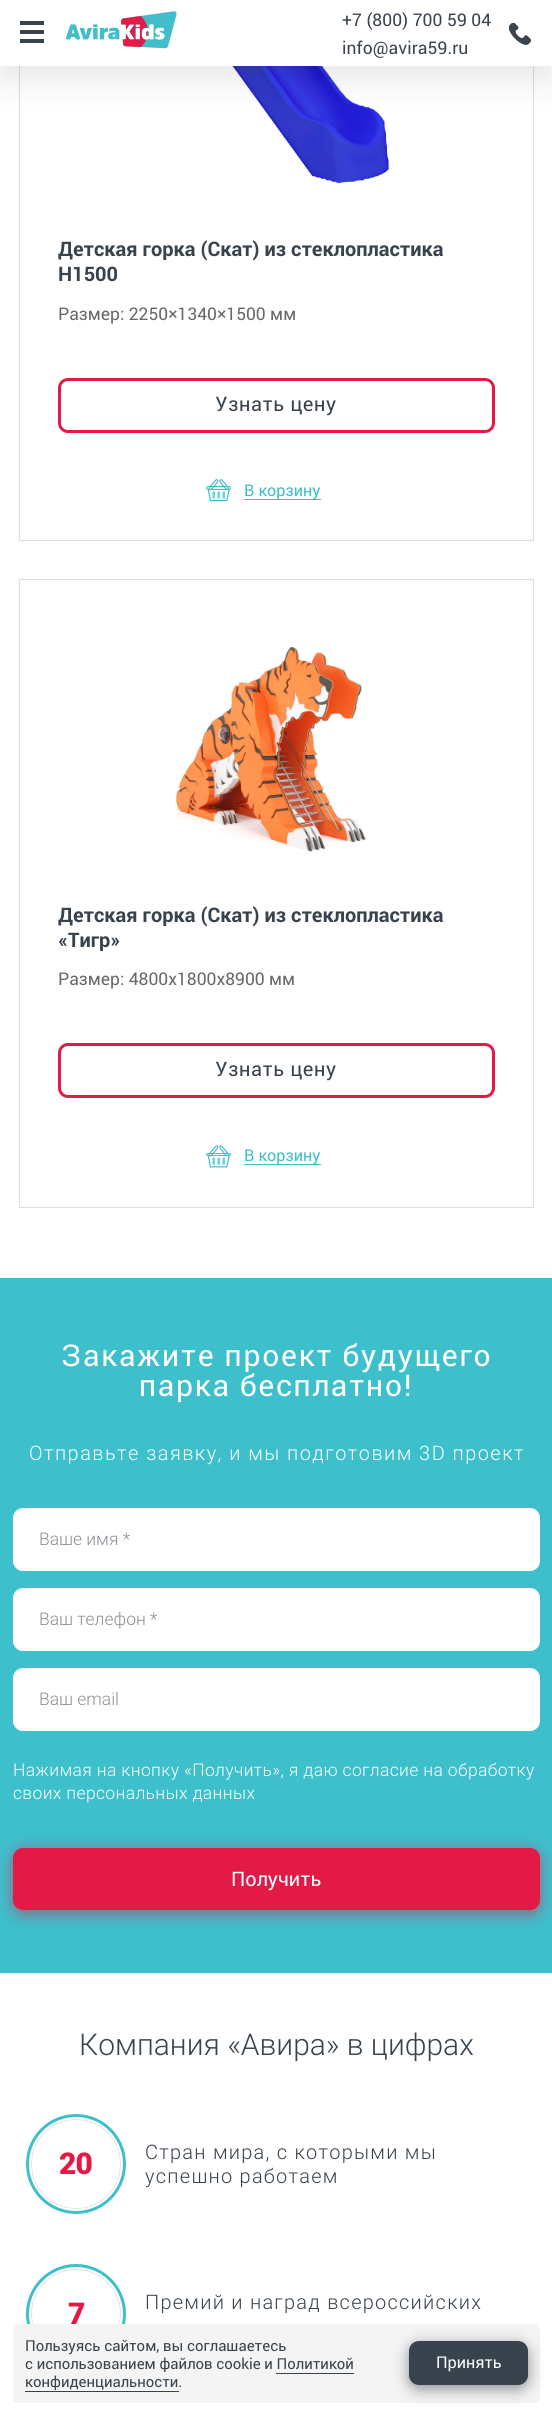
import math
import cairo

surface = cairo.ImageSurface(cairo.FORMAT_RGB24, 552, 2414)
ctx = cairo.Context(surface)
options = cairo.FontOptions()
options.set_hint_metrics(cairo.HINT_METRICS_OFF)
options.set_hint_style(cairo.HINT_STYLE_NONE)
ctx.set_font_options(options)
ctx.set_miter_limit(4)


def spaced_text(x, y, s, letter, word):
    ctx.move_to(x, y)
    for ch in s:
        ctx.show_text(ch)
        ctx.rel_move_to(letter + word * (ch == ' '), 0)


def round_rect(x, y, w, h, r):
    ctx.new_sub_path()
    for i, (u, v) in enumerate([(x + w - r, y + h - r), (x + r, y + h - r), (x + r, y + r), (x + w - r, y + r)]):
        ctx.arc(u, v, r, i * math.pi / 2, (i + 1) * math.pi / 2)
    ctx.close_path()


def shadow(x, y, w, h, r, blur, alpha):
    ctx.push_group_with_content(cairo.CONTENT_ALPHA)
    ctx.set_operator(cairo.OPERATOR_SOURCE)
    for i in range(15, -16, -2):
        e = blur * i / 6
        if min(w, h) + 2 * e > 0:
            ctx.set_source_rgba(0, 0, 0, alpha * math.erfc((i - 1) / 8.5) / 2)
            round_rect(x - e, y - e, w + 2 * e, h + 2 * e, max(0, min(r + e + blur * .6, min(w, h) / 2 + e)))
            ctx.fill()
    ctx.mask(ctx.pop_group())


def picture(path, x, y, w, h):
    ctx.save()
    ctx.set_source_surface(cairo.ImageSurface.create_from_png(path), x, y)
    ctx.rectangle(x, y, w, h)
    ctx.fill()
    ctx.restore()


ctx.set_source_rgb(1, 1, 1)
ctx.paint()
ctx.rectangle(19.5, -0.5, 514, 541)
ctx.set_source_rgb(0.867, 0.867, 0.867)
ctx.set_line_width(1)
ctx.stroke()
picture("img3.png", 183, 66, 206, 118)
ctx.set_source_rgb(0, 0, 0)
shadow(0, 13, 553, 66, 0, 19, 0.1)
ctx.set_source_rgb(1, 1, 1)
ctx.rectangle(0, 0, 552, 66)
ctx.fill()
ctx.set_source_rgb(0.224, 0.263, 0.302)
ctx.rectangle(20, 30, 24, 4)
ctx.fill()
ctx.rectangle(20, 21, 24, 4)
ctx.fill()
ctx.rectangle(20, 39, 24, 4)
ctx.fill()
picture("img1.png", 65, 11, 112, 38)
ctx.select_font_face("Roboto")
ctx.set_font_size(17.5)
spaced_text(342, 26, "+7 (800) 700 59 04", 0.1, 0)
spaced_text(342, 54, "info@avira59.ru", 0.1, 0)
picture("img2.png", 509, 23, 22, 22)
ctx.select_font_face("Roboto", cairo.FONT_SLANT_NORMAL, cairo.FONT_WEIGHT_BOLD)
ctx.set_font_size(20)
ctx.move_to(58, 256)
ctx.show_text("Детская горка (Скат) из стеклопластика")
ctx.move_to(58, 281)
ctx.show_text("Н1500")
ctx.select_font_face("Roboto")
ctx.set_font_size(17.5)
ctx.set_source_rgb(0.4, 0.408, 0.416)
ctx.move_to(58, 320)
ctx.show_text("Размер: 2250×1340×1500 мм")
round_rect(59.5, 379.5, 434, 52, 8.5)
ctx.set_source_rgb(0.894, 0.102, 0.275)
ctx.set_line_width(3)
ctx.stroke()
ctx.set_font_size(20)
ctx.set_source_rgb(0.224, 0.263, 0.302)
spaced_text(215, 411, "Узнать цену", 0.6, 0)
picture("img4.png", 206, 479, 25, 23)
ctx.set_source_rgb(0.243, 0.749, 0.8)
ctx.rectangle(244, 499, 77, 1)
ctx.fill()
ctx.set_font_size(16.25)
ctx.move_to(244, 496)
ctx.show_text("В корзину")
ctx.rectangle(19.5, 579.5, 514, 628)
ctx.set_source_rgb(0.867, 0.867, 0.867)
ctx.set_line_width(1)
ctx.stroke()
picture("img5.png", 175, 646, 191, 206)
ctx.select_font_face("Roboto", cairo.FONT_SLANT_NORMAL, cairo.FONT_WEIGHT_BOLD)
ctx.set_font_size(20)
ctx.set_source_rgb(0.224, 0.263, 0.302)
ctx.move_to(58, 922)
ctx.show_text("Детская горка (Скат) из стеклопластика")
ctx.move_to(58, 947)
ctx.show_text("«Тигр»")
ctx.select_font_face("Roboto")
ctx.set_font_size(17.5)
ctx.set_source_rgb(0.4, 0.408, 0.416)
ctx.move_to(58, 985)
ctx.show_text("Размер: 4800х1800х8900 мм")
round_rect(59.5, 1044.5, 434, 52, 8.5)
ctx.set_source_rgb(0.894, 0.102, 0.275)
ctx.set_line_width(3)
ctx.stroke()
ctx.set_font_size(20)
ctx.set_source_rgb(0.224, 0.263, 0.302)
spaced_text(215, 1076, "Узнать цену", 0.6, 0)
picture("img6.png", 206, 1145, 25, 23)
ctx.set_source_rgb(0.243, 0.749, 0.8)
ctx.rectangle(244, 1164, 77, 1)
ctx.fill()
ctx.set_font_size(16.25)
ctx.move_to(244, 1161)
ctx.show_text("В корзину")
ctx.rectangle(0, 1278, 552, 695)
ctx.fill()
ctx.set_font_size(30)
ctx.set_source_rgb(1, 1, 1)
spaced_text(61, 1366, "Закажите проект будущего", 1.75, 0)
spaced_text(139, 1396, "парка бесплатно!", 1.75, 0)
ctx.select_font_face("Roboto Light")
ctx.set_font_size(20)
spaced_text(29, 1460, "Отправьте заявку, и мы подготовим 3D проект", 1.45, 0)
round_rect(13, 1508, 527, 63, 10)
ctx.fill()
ctx.set_font_size(17.5)
ctx.set_source_rgb(0.541, 0.561, 0.58)
ctx.move_to(39, 1545)
ctx.show_text("Ваше имя *")
ctx.set_source_rgb(1, 1, 1)
round_rect(13, 1588, 527, 63, 10)
ctx.fill()
ctx.set_source_rgb(0.541, 0.561, 0.58)
ctx.move_to(39, 1625)
ctx.show_text("Ваш телефон *")
ctx.set_source_rgb(1, 1, 1)
round_rect(13, 1668, 527, 63, 10)
ctx.fill()
ctx.set_source_rgb(0.541, 0.561, 0.58)
ctx.move_to(39, 1705)
ctx.show_text("Ваш email")
ctx.set_source_rgb(1, 1, 1)
spaced_text(13, 1776, "Нажимая на кнопку «Получить», я даю согласие на обработку", 0.35, 0)
spaced_text(13, 1799, "своих персональных данных", 0.35, 0)
ctx.set_source_rgb(0.894, 0.102, 0.275)
shadow(13, 1851, 527, 63, 10, 7.5, 0.57)
ctx.set_source_rgb(0.894, 0.102, 0.275)
round_rect(14.5, 1849.5, 524, 59, 8.5)
ctx.fill_preserve()
ctx.stroke()
ctx.select_font_face("Roboto")
ctx.set_font_size(20)
ctx.set_source_rgb(1, 1, 1)
ctx.move_to(231, 1886)
ctx.show_text("Получить")
ctx.select_font_face("Roboto Light")
ctx.set_font_size(30)
ctx.set_source_rgb(0.224, 0.263, 0.302)
ctx.move_to(79, 2055)
ctx.show_text("Компания «Авира» в цифрах")
ctx.new_path()
ctx.arc(76, 2164, 48.5, 0, 2 * math.pi)
ctx.set_source_rgb(0.243, 0.749, 0.8)
ctx.stroke()
ctx.arc(76, 2164, 44.5, 0, 2 * math.pi)
ctx.set_source_rgb(0.898, 0.898, 0.898)
ctx.set_line_width(1)
ctx.stroke()
ctx.select_font_face("Roboto Black")
ctx.set_source_rgb(0.894, 0.102, 0.275)
spaced_text(59, 2174, "20", -1, 0)
ctx.select_font_face("Roboto Light")
ctx.set_font_size(20)
ctx.set_source_rgb(0.224, 0.263, 0.302)
spaced_text(145, 2159, "Стран мира, с которыми мы", 1.25, 0)
spaced_text(145, 2183, "успешно работаем", 1.25, 0)
ctx.new_path()
ctx.arc(76, 2314, 48.5, 0, 2 * math.pi)
ctx.set_source_rgb(0.243, 0.749, 0.8)
ctx.set_line_width(3)
ctx.stroke()
ctx.arc(76, 2314, 44.5, 0, 2 * math.pi)
ctx.set_source_rgb(0.898, 0.898, 0.898)
ctx.set_line_width(1)
ctx.stroke()
ctx.select_font_face("Roboto Black")
ctx.set_font_size(30)
ctx.set_source_rgb(0.894, 0.102, 0.275)
spaced_text(68, 2324, "7", -1, 0)
ctx.select_font_face("Roboto Light")
ctx.set_font_size(20)
ctx.set_source_rgb(0.224, 0.263, 0.302)
spaced_text(145, 2309, "Премий и наград всероссийских", 1.25, 0)
ctx.set_source_rgb(0.957, 0.957, 0.957)
round_rect(13, 2324, 527, 79, 5)
ctx.fill()
ctx.select_font_face("Roboto")
ctx.set_font_size(15)
ctx.set_source_rgb(0.224, 0.263, 0.302)
ctx.move_to(25, 2351)
ctx.show_text("Пользуясь сайтом, вы соглашаетесь")
ctx.move_to(25, 2369)
ctx.show_text("с использованием файлов cookie и Политикой")
ctx.move_to(25, 2387)
ctx.show_text("конфиденциальности.")
ctx.rectangle(276, 2373, 78, 1)
ctx.fill()
ctx.rectangle(25, 2391, 154, 1)
ctx.fill()
ctx.set_source_rgb(0.224, 0.263, 0.302)
shadow(409, 2345, 119, 44, 10, 7.5, 0.57)
ctx.set_source_rgb(0.224, 0.263, 0.302)
round_rect(410.5, 2342.5, 116, 41, 8.5)
ctx.fill_preserve()
ctx.set_line_width(3)
ctx.stroke()
ctx.set_font_size(16.25)
ctx.set_source_rgb(1, 1, 1)
ctx.move_to(436, 2368)
ctx.show_text("Принять")
surface.write_to_png("page.png")
